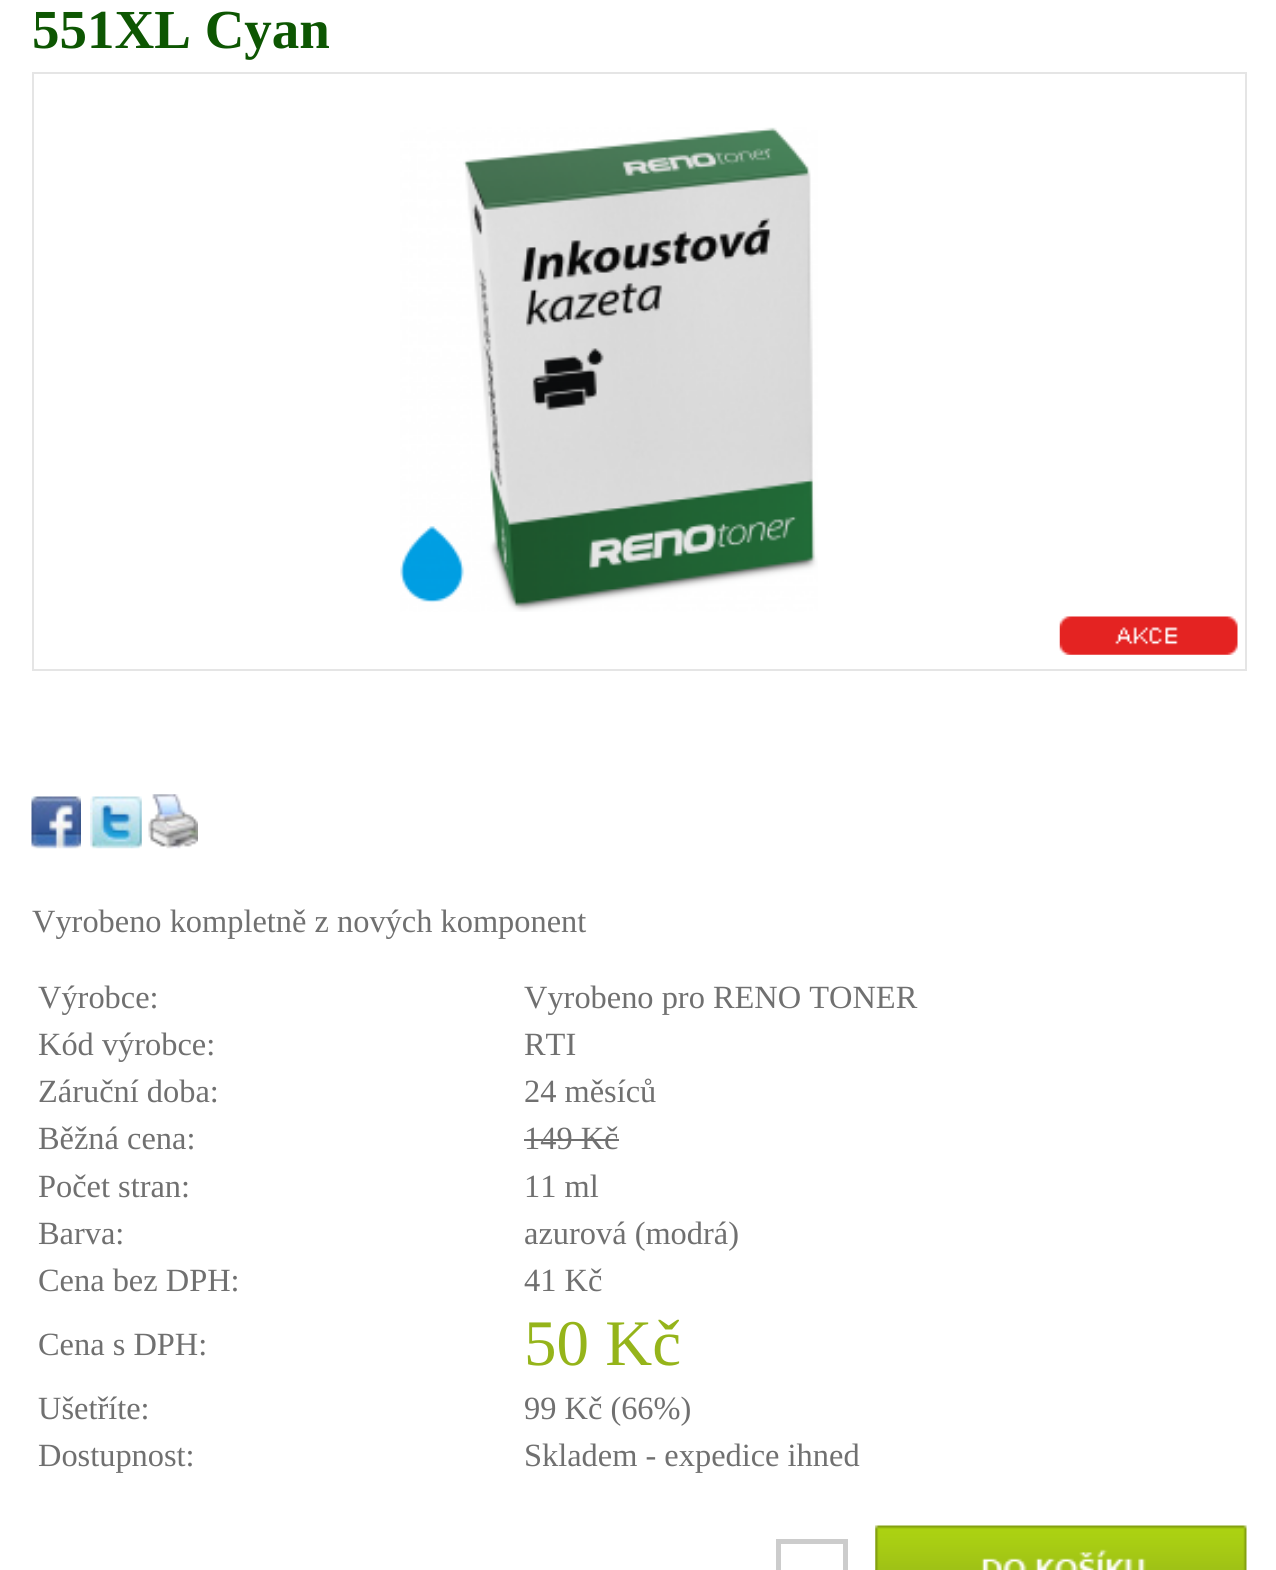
import math
import cairo

surface = cairo.ImageSurface(cairo.FORMAT_RGB24, 1276, 1570)
ctx = cairo.Context(surface)
options = cairo.FontOptions()
options.set_hint_metrics(cairo.HINT_METRICS_OFF)
options.set_hint_style(cairo.HINT_STYLE_NONE)
ctx.set_font_options(options)
ctx.set_miter_limit(4)


def picture(path, x, y, w, h):
    ctx.save()
    ctx.set_source_surface(cairo.ImageSurface.create_from_png(path), x, y)
    ctx.rectangle(x, y, w, h)
    ctx.fill()
    ctx.restore()


ctx.set_source_rgb(1, 1, 1)
ctx.paint()
ctx.select_font_face("Liberation Serif", cairo.FONT_SLANT_NORMAL, cairo.FONT_WEIGHT_BOLD)
ctx.set_font_size(55)
ctx.set_source_rgb(0.051, 0.337, 0.008)
ctx.move_to(32, 48)
ctx.show_text("551XL Cyan")
ctx.rectangle(33, 73, 1213, 597)
ctx.set_source_rgb(0.898, 0.898, 0.898)
ctx.stroke()
picture("img1.png", 400, 127, 418, 485)
picture("img2.png", 1059, 616, 179, 39)
picture("img3.png", 31, 796, 50, 53)
picture("img4.png", 90, 796, 52, 53)
picture("img5.png", 148, 794, 50, 55)
ctx.select_font_face("Liberation Serif")
ctx.set_font_size(32.4)
ctx.set_source_rgb(0.439, 0.439, 0.439)
ctx.move_to(32, 932)
ctx.show_text("Vyrobeno kompletně z nových komponent")
ctx.move_to(38, 1008)
ctx.show_text("Výrobce:")
ctx.move_to(524, 1008)
ctx.show_text("Vyrobeno pro RENO TONER")
ctx.move_to(38, 1055)
ctx.show_text("Kód výrobce:")
ctx.move_to(524, 1055)
ctx.show_text("RTI")
ctx.move_to(38, 1102)
ctx.show_text("Záruční doba:")
ctx.move_to(524, 1102)
ctx.show_text("24 měsíců")
ctx.move_to(38, 1149)
ctx.show_text("Běžná cena:")
ctx.move_to(524, 1149)
ctx.show_text("149 Kč")
ctx.rectangle(524, 1139, 95, 2)
ctx.fill()
ctx.move_to(38, 1197)
ctx.show_text("Počet stran:")
ctx.move_to(524, 1197)
ctx.show_text("11 ml")
ctx.move_to(38, 1244)
ctx.show_text("Barva:")
ctx.move_to(524, 1244)
ctx.show_text("azurová (modrá)")
ctx.move_to(38, 1291)
ctx.show_text("Cena bez DPH:")
ctx.move_to(524, 1291)
ctx.show_text("41 Kč")
ctx.move_to(38, 1355)
ctx.show_text("Cena s DPH:")
ctx.set_font_size(65)
ctx.set_source_rgb(0.584, 0.706, 0.102)
ctx.move_to(524, 1365)
ctx.show_text("50 Kč")
ctx.set_font_size(32.4)
ctx.set_source_rgb(0.439, 0.439, 0.439)
ctx.move_to(38, 1419)
ctx.show_text("Ušetříte:")
ctx.move_to(524, 1419)
ctx.show_text("99 Kč (66%)")
ctx.move_to(38, 1466)
ctx.show_text("Dostupnost:")
ctx.move_to(524, 1466)
ctx.show_text("Skladem - expedice ihned")
ctx.rectangle(778.5, 1541.5, 67, 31)
ctx.set_source_rgb(0.8, 0.8, 0.8)
ctx.set_line_width(5)
ctx.stroke()
picture("img6.png", 875, 1525, 372, 45)
surface.write_to_png("page.png")
